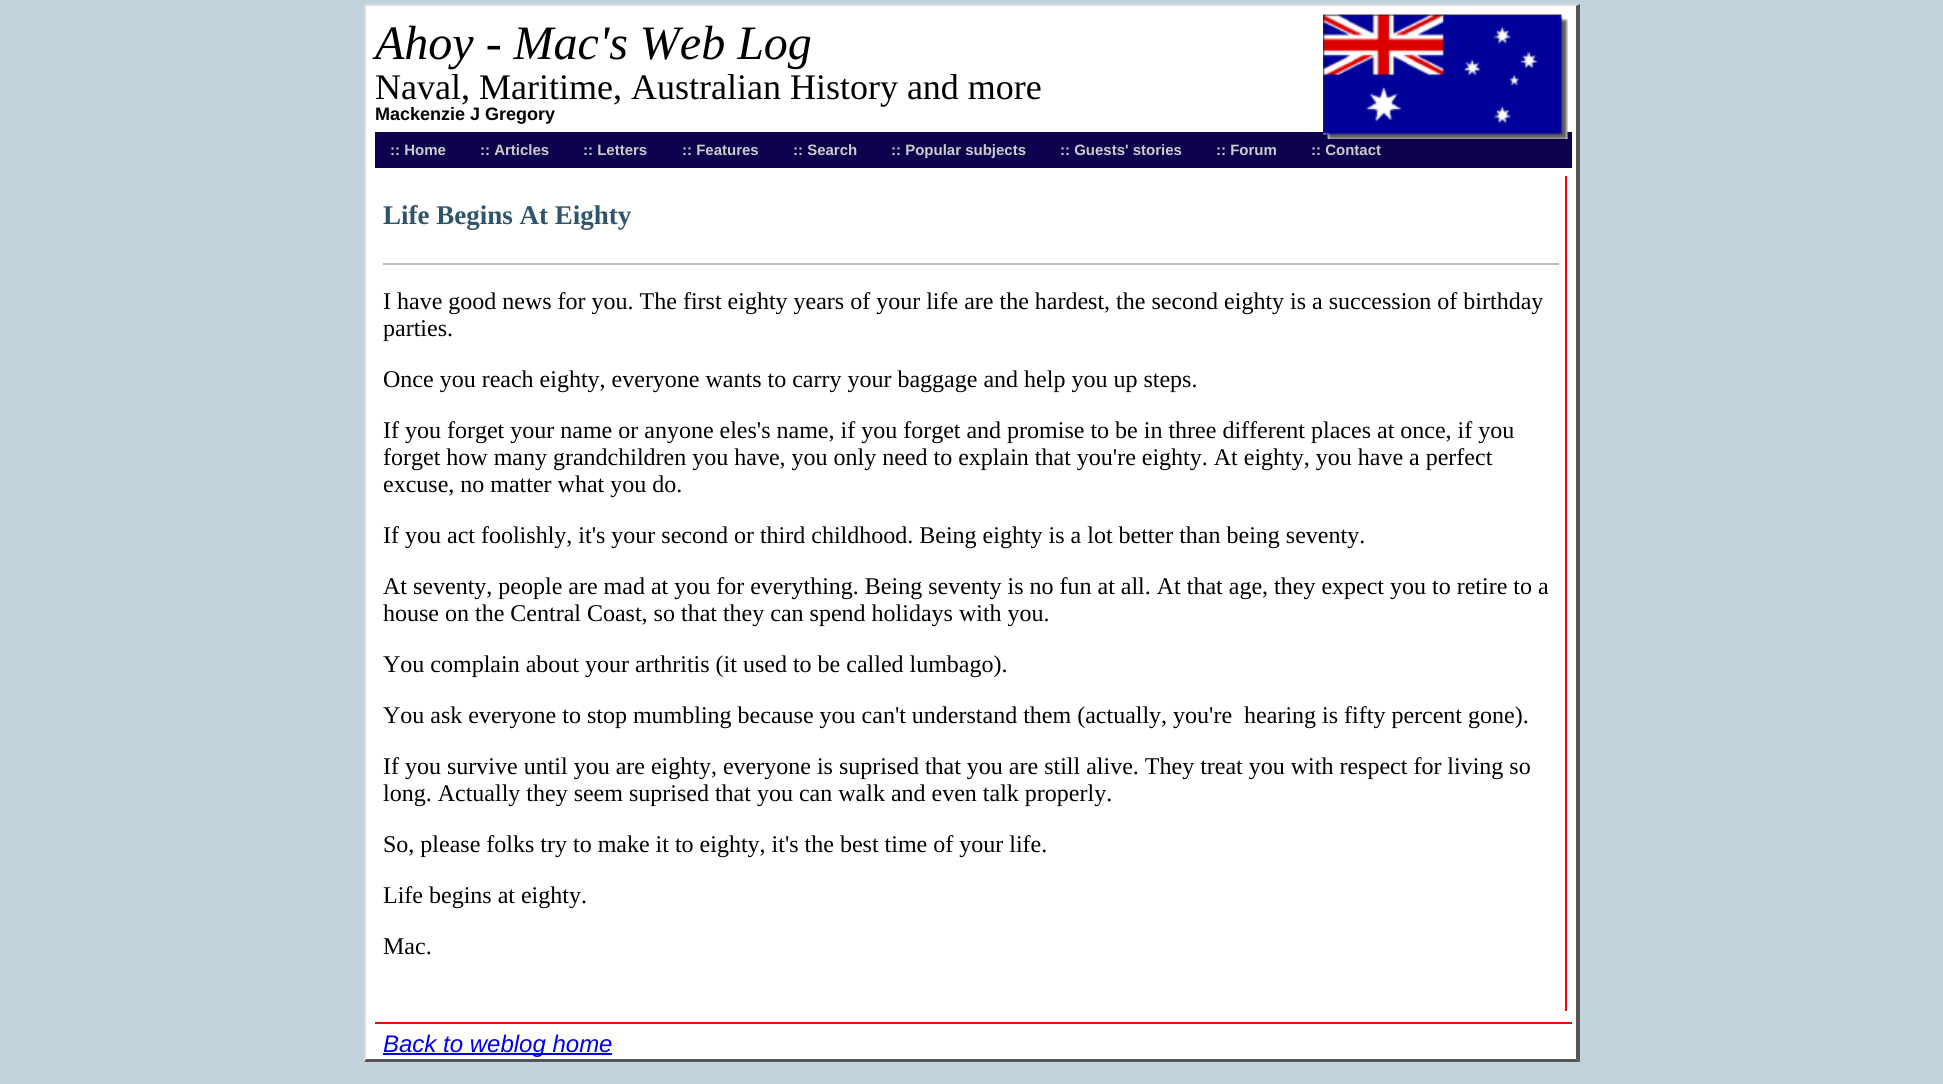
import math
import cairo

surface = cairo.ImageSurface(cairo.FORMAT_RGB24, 1943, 1084)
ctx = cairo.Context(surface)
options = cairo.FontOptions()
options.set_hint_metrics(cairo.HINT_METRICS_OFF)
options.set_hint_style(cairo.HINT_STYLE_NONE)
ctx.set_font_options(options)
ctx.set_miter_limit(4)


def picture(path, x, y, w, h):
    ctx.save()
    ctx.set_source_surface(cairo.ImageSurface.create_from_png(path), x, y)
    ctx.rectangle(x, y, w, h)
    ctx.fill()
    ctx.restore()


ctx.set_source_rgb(0.753, 0.824, 0.863)
ctx.paint()
ctx.set_source_rgb(1, 1, 1)
ctx.rectangle(366, 6, 1210, 1053)
ctx.fill()
ctx.set_source_rgb(0.867, 0.867, 0.867)
ctx.new_path()
ctx.move_to(364, 4)
ctx.line_to(1580, 4)
ctx.line_to(1576, 6)
ctx.line_to(366, 6)
ctx.close_path()
ctx.fill()
ctx.set_source_rgb(0.333, 0.333, 0.333)
ctx.new_path()
ctx.move_to(1580, 4)
ctx.line_to(1580, 1062)
ctx.line_to(1576, 1059)
ctx.line_to(1576, 6)
ctx.close_path()
ctx.fill()
ctx.new_path()
ctx.move_to(1580, 1062)
ctx.line_to(364, 1062)
ctx.line_to(366, 1059)
ctx.line_to(1576, 1059)
ctx.close_path()
ctx.fill()
ctx.set_source_rgb(0.867, 0.867, 0.867)
ctx.new_path()
ctx.move_to(364, 1062)
ctx.line_to(364, 4)
ctx.line_to(366, 6)
ctx.line_to(366, 1059)
ctx.close_path()
ctx.fill()
ctx.select_font_face("Liberation Serif", cairo.FONT_SLANT_ITALIC)
ctx.set_font_size(48)
ctx.set_source_rgb(0, 0, 0)
ctx.move_to(375, 59)
ctx.show_text("Ahoy - Mac's Web Log")
ctx.set_source_rgb(0.051, 0.004, 0.302)
ctx.rectangle(375, 132, 1197, 36)
ctx.fill()
picture("img1.png", 1323, 14, 245, 125)
ctx.select_font_face("Liberation Serif")
ctx.set_font_size(36)
ctx.set_source_rgb(0, 0, 0)
ctx.move_to(375, 99)
ctx.show_text("Naval, Maritime, Australian History and more")
ctx.select_font_face("Liberation Sans", cairo.FONT_SLANT_NORMAL, cairo.FONT_WEIGHT_BOLD)
ctx.set_font_size(18)
ctx.move_to(375, 120)
ctx.show_text("Mackenzie J Gregory")
ctx.set_font_size(15)
ctx.set_source_rgb(0.8, 0.8, 0.8)
ctx.move_to(390, 155)
ctx.show_text(":: Home")
ctx.move_to(480, 155)
ctx.show_text(":: Articles")
ctx.move_to(583, 155)
ctx.show_text(":: Letters")
ctx.move_to(682, 155)
ctx.show_text(":: Features")
ctx.move_to(793, 155)
ctx.show_text(":: Search")
ctx.move_to(891, 155)
ctx.show_text(":: Popular subjects")
ctx.move_to(1060, 155)
ctx.show_text(":: Guests' stories")
ctx.move_to(1216, 155)
ctx.show_text(":: Forum")
ctx.move_to(1311, 155)
ctx.show_text(":: Contact")
ctx.set_source_rgb(0.753, 0.753, 0.753)
ctx.rectangle(383, 263, 1176, 2)
ctx.fill()
ctx.select_font_face("Liberation Serif", cairo.FONT_SLANT_NORMAL, cairo.FONT_WEIGHT_BOLD)
ctx.set_font_size(27)
ctx.set_source_rgb(0.18, 0.333, 0.42)
ctx.move_to(383, 224)
ctx.show_text("Life Begins At Eighty")
ctx.select_font_face("Liberation Serif")
ctx.set_font_size(24)
ctx.set_source_rgb(0, 0, 0)
ctx.move_to(383, 309)
ctx.show_text("I have good news for you. The first eighty years of your life are the hardest, the second eighty is a succession of birthday")
ctx.move_to(383, 336)
ctx.show_text("parties.")
ctx.move_to(383, 387)
ctx.show_text("Once you reach eighty, everyone wants to carry your baggage and help you up steps.")
ctx.move_to(383, 438)
ctx.show_text("If you forget your name or anyone eles's name, if you forget and promise to be in three different places at once, if you")
ctx.move_to(383, 465)
ctx.show_text("forget how many grandchildren you have, you only need to explain that you're eighty. At eighty, you have a perfect")
ctx.move_to(383, 492)
ctx.show_text("excuse, no matter what you do.")
ctx.move_to(383, 543)
ctx.show_text("If you act foolishly, it's your second or third childhood. Being eighty is a lot better than being seventy.")
ctx.move_to(383, 594)
ctx.show_text("At seventy, people are mad at you for everything. Being seventy is no fun at all. At that age, they expect you to retire to a")
ctx.move_to(383, 621)
ctx.show_text("house on the Central Coast, so that they can spend holidays with you.")
ctx.move_to(383, 672)
ctx.show_text("You complain about your arthritis (it used to be called lumbago).")
ctx.move_to(383, 723)
ctx.show_text("You ask everyone to stop mumbling because you can't understand them (actually, you're  hearing is fifty percent gone).")
ctx.move_to(383, 774)
ctx.show_text("If you survive until you are eighty, everyone is suprised that you are still alive. They treat you with respect for living so")
ctx.move_to(383, 801)
ctx.show_text("long. Actually they seem suprised that you can walk and even talk properly.")
ctx.move_to(383, 852)
ctx.show_text("So, please folks try to make it to eighty, it's the best time of your life.")
ctx.move_to(383, 903)
ctx.show_text("Life begins at eighty.")
ctx.move_to(383, 954)
ctx.show_text("Mac.")
ctx.set_source_rgb(0.996, 0, 0)
ctx.rectangle(1565, 176, 2, 835)
ctx.fill()
ctx.rectangle(375, 1022, 1197, 2)
ctx.fill()
ctx.set_source_rgb(0, 0, 0.933)
ctx.rectangle(383, 1053, 229, 2)
ctx.fill()
ctx.select_font_face("Liberation Sans", cairo.FONT_SLANT_ITALIC)
ctx.move_to(383, 1052)
ctx.show_text("Back to weblog home")
surface.write_to_png("page.png")
